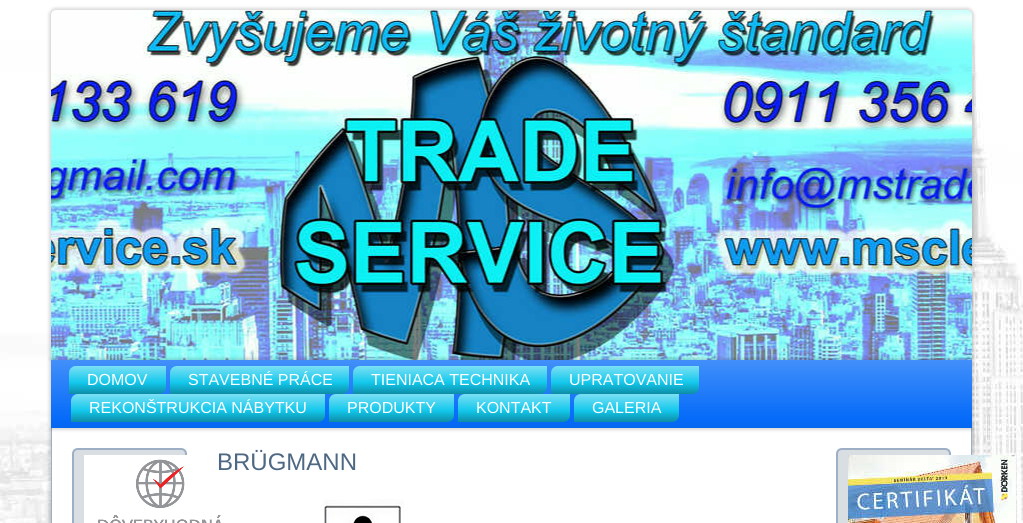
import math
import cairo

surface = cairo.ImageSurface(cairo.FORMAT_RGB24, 1023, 523)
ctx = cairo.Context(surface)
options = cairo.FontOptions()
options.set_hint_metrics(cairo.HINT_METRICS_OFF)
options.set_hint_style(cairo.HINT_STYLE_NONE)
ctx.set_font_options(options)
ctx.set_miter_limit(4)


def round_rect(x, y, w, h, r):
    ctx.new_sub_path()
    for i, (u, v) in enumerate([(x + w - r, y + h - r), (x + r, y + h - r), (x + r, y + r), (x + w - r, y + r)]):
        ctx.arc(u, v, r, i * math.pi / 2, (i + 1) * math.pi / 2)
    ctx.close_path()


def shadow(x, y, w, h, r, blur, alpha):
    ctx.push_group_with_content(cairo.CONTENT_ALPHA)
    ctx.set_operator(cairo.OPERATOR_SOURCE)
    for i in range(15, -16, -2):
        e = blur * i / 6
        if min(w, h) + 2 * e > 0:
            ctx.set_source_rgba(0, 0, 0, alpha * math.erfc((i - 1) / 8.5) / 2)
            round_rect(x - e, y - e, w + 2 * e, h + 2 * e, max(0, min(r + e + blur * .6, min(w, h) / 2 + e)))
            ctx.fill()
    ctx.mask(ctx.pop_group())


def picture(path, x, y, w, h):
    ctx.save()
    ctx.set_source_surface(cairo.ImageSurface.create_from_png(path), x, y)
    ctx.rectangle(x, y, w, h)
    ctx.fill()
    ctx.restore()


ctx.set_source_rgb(1, 1, 1)
ctx.paint()
picture("img1.png", 0, 40, 1023, 483)
ctx.set_source_rgb(0, 0, 0)
shadow(49, 8, 925, 354, 7, 1.5, 0.15)
picture("img2.png", 51, 10, 921, 350)
shadow(49, 426, 925, 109, 7, 1.5, 0.15)
ctx.set_source_rgb(1, 1, 1)
ctx.rectangle(52, 428, 919, 95)
ctx.fill()
ctx.set_source_rgb(0.612, 0.686, 0.769)
ctx.set_fill_rule(cairo.FILL_RULE_EVEN_ODD)
ctx.new_path()
ctx.move_to(51, 428)
ctx.line_to(972, 428)
ctx.line_to(972, 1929)
ctx.curve_to(972, 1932, 970, 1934, 967, 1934)
ctx.line_to(56, 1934)
ctx.curve_to(53, 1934, 51, 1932, 51, 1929)
ctx.close_path()
ctx.move_to(52, 428)
ctx.line_to(971, 428)
ctx.line_to(971, 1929)
ctx.curve_to(971, 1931, 969, 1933, 967, 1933)
ctx.line_to(56, 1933)
ctx.curve_to(54, 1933, 52, 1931, 52, 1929)
ctx.close_path()
ctx.fill()
ctx.set_source_rgb(0, 0, 0)
shadow(49, 358, 925, 72, 0, 1.5, 0.15)
gradient = cairo.LinearGradient(512, 360, 512, 428)
gradient.add_color_stop_rgba(0, 0.259, 0.561, 0.98, 1)
gradient.add_color_stop_rgba(0.86, 0.024, 0.42, 0.976, 1)
gradient.add_color_stop_rgba(1, 0.024, 0.404, 0.937, 1)
ctx.set_source(gradient)
ctx.rectangle(51, 360, 921, 68)
ctx.fill()
gradient = cairo.LinearGradient(118, 366, 118, 394)
gradient.add_color_stop_rgba(0, 0.482, 0.878, 0.957, 1)
gradient.add_color_stop_rgba(0.59, 0.075, 0.784, 0.925, 1)
gradient.add_color_stop_rgba(1, 0.051, 0.549, 0.647, 1)
ctx.set_source(gradient)
ctx.new_path()
ctx.move_to(76, 366)
ctx.line_to(166, 366)
ctx.line_to(166, 387)
ctx.curve_to(166, 391, 163, 394, 159, 394)
ctx.line_to(69, 394)
ctx.line_to(69, 373)
ctx.curve_to(69, 369, 72, 366, 76, 366)
ctx.close_path()
ctx.fill()
ctx.select_font_face("Liberation Sans")
ctx.set_font_size(16)
ctx.set_source_rgb(1, 1, 1)
ctx.move_to(87, 385)
ctx.show_text("DOMOV")
gradient = cairo.LinearGradient(260, 366, 260, 394)
gradient.add_color_stop_rgba(0, 0.482, 0.878, 0.957, 1)
gradient.add_color_stop_rgba(0.59, 0.075, 0.784, 0.925, 1)
gradient.add_color_stop_rgba(1, 0.051, 0.549, 0.647, 1)
ctx.set_source(gradient)
ctx.new_path()
ctx.move_to(177, 366)
ctx.line_to(349, 366)
ctx.line_to(349, 387)
ctx.curve_to(349, 391, 346, 394, 342, 394)
ctx.line_to(170, 394)
ctx.line_to(170, 373)
ctx.curve_to(170, 369, 173, 366, 177, 366)
ctx.close_path()
ctx.fill()
ctx.set_source_rgb(1, 1, 1)
ctx.move_to(188, 385)
ctx.show_text("STAVEBNÉ PRÁCE")
gradient = cairo.LinearGradient(450, 366, 450, 394)
gradient.add_color_stop_rgba(0, 0.482, 0.878, 0.957, 1)
gradient.add_color_stop_rgba(0.59, 0.075, 0.784, 0.925, 1)
gradient.add_color_stop_rgba(1, 0.051, 0.549, 0.647, 1)
ctx.set_source(gradient)
ctx.new_path()
ctx.move_to(360, 366)
ctx.line_to(547, 366)
ctx.line_to(547, 387)
ctx.curve_to(547, 391, 544, 394, 540, 394)
ctx.line_to(353, 394)
ctx.line_to(353, 373)
ctx.curve_to(353, 369, 356, 366, 360, 366)
ctx.close_path()
ctx.fill()
ctx.set_source_rgb(1, 1, 1)
ctx.move_to(371, 385)
ctx.show_text("TIENIACA TECHNIKA")
gradient = cairo.LinearGradient(625, 366, 625, 394)
gradient.add_color_stop_rgba(0, 0.482, 0.878, 0.957, 1)
gradient.add_color_stop_rgba(0.59, 0.075, 0.784, 0.925, 1)
gradient.add_color_stop_rgba(1, 0.051, 0.549, 0.647, 1)
ctx.set_source(gradient)
ctx.new_path()
ctx.move_to(558, 366)
ctx.line_to(699, 366)
ctx.line_to(699, 387)
ctx.curve_to(699, 391, 696, 394, 692, 394)
ctx.line_to(551, 394)
ctx.line_to(551, 373)
ctx.curve_to(551, 369, 554, 366, 558, 366)
ctx.close_path()
ctx.fill()
ctx.set_source_rgb(1, 1, 1)
ctx.move_to(569, 385)
ctx.show_text("UPRATOVANIE")
gradient = cairo.LinearGradient(198, 394, 198, 422)
gradient.add_color_stop_rgba(0, 0.482, 0.878, 0.957, 1)
gradient.add_color_stop_rgba(0.59, 0.075, 0.784, 0.925, 1)
gradient.add_color_stop_rgba(1, 0.051, 0.549, 0.647, 1)
ctx.set_source(gradient)
ctx.new_path()
ctx.move_to(78, 394)
ctx.line_to(325, 394)
ctx.line_to(325, 415)
ctx.curve_to(325, 419, 322, 422, 318, 422)
ctx.line_to(71, 422)
ctx.line_to(71, 401)
ctx.curve_to(71, 397, 74, 394, 78, 394)
ctx.close_path()
ctx.fill()
ctx.set_source_rgb(1, 1, 1)
ctx.move_to(89, 413)
ctx.show_text("REKONŠTRUKCIA NÁBYTKU")
gradient = cairo.LinearGradient(392, 394, 392, 422)
gradient.add_color_stop_rgba(0, 0.482, 0.878, 0.957, 1)
gradient.add_color_stop_rgba(0.59, 0.075, 0.784, 0.925, 1)
gradient.add_color_stop_rgba(1, 0.051, 0.549, 0.647, 1)
ctx.set_source(gradient)
ctx.new_path()
ctx.move_to(336, 394)
ctx.line_to(454, 394)
ctx.line_to(454, 415)
ctx.curve_to(454, 419, 451, 422, 447, 422)
ctx.line_to(329, 422)
ctx.line_to(329, 401)
ctx.curve_to(329, 397, 332, 394, 336, 394)
ctx.close_path()
ctx.fill()
ctx.set_source_rgb(1, 1, 1)
ctx.move_to(347, 413)
ctx.show_text("PRODUKTY")
gradient = cairo.LinearGradient(514, 394, 514, 422)
gradient.add_color_stop_rgba(0, 0.482, 0.878, 0.957, 1)
gradient.add_color_stop_rgba(0.59, 0.075, 0.784, 0.925, 1)
gradient.add_color_stop_rgba(1, 0.051, 0.549, 0.647, 1)
ctx.set_source(gradient)
ctx.new_path()
ctx.move_to(465, 394)
ctx.line_to(570, 394)
ctx.line_to(570, 415)
ctx.curve_to(570, 419, 567, 422, 563, 422)
ctx.line_to(458, 422)
ctx.line_to(458, 401)
ctx.curve_to(458, 397, 461, 394, 465, 394)
ctx.close_path()
ctx.fill()
ctx.set_source_rgb(1, 1, 1)
ctx.move_to(476, 413)
ctx.show_text("KONTAKT")
gradient = cairo.LinearGradient(627, 394, 627, 422)
gradient.add_color_stop_rgba(0, 0.482, 0.878, 0.957, 1)
gradient.add_color_stop_rgba(0.59, 0.075, 0.784, 0.925, 1)
gradient.add_color_stop_rgba(1, 0.051, 0.549, 0.647, 1)
ctx.set_source(gradient)
ctx.new_path()
ctx.move_to(581, 394)
ctx.line_to(679, 394)
ctx.line_to(679, 415)
ctx.curve_to(679, 419, 676, 422, 672, 422)
ctx.line_to(574, 422)
ctx.line_to(574, 401)
ctx.curve_to(574, 397, 577, 394, 581, 394)
ctx.close_path()
ctx.fill()
ctx.set_source_rgb(1, 1, 1)
ctx.move_to(592, 413)
ctx.show_text("GALERIA")
ctx.set_source_rgb(0.851, 0.871, 0.89)
ctx.new_path()
ctx.move_to(78, 449)
ctx.line_to(181, 449)
ctx.curve_to(184, 449, 186, 451, 186, 454)
ctx.line_to(186, 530)
ctx.line_to(73, 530)
ctx.line_to(73, 454)
ctx.curve_to(73, 451, 75, 449, 78, 449)
ctx.close_path()
ctx.fill_preserve()
ctx.set_source_rgb(0.612, 0.686, 0.769)
ctx.stroke()
picture("img3.png", 84, 455, 137, 68)
ctx.set_font_size(24)
ctx.set_source_rgb(0.306, 0.408, 0.514)
ctx.move_to(217, 470)
ctx.show_text("BRÜGMANN")
picture("img4.png", 323, 499, 81, 24)
ctx.set_source_rgb(0.851, 0.871, 0.89)
ctx.new_path()
ctx.move_to(842, 449)
ctx.line_to(945, 449)
ctx.curve_to(948, 449, 950, 451, 950, 454)
ctx.line_to(950, 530)
ctx.line_to(837, 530)
ctx.line_to(837, 454)
ctx.curve_to(837, 451, 839, 449, 842, 449)
ctx.close_path()
ctx.fill_preserve()
ctx.set_source_rgb(0.612, 0.686, 0.769)
ctx.stroke()
picture("img5.png", 848, 455, 168, 68)
surface.write_to_png("page.png")
